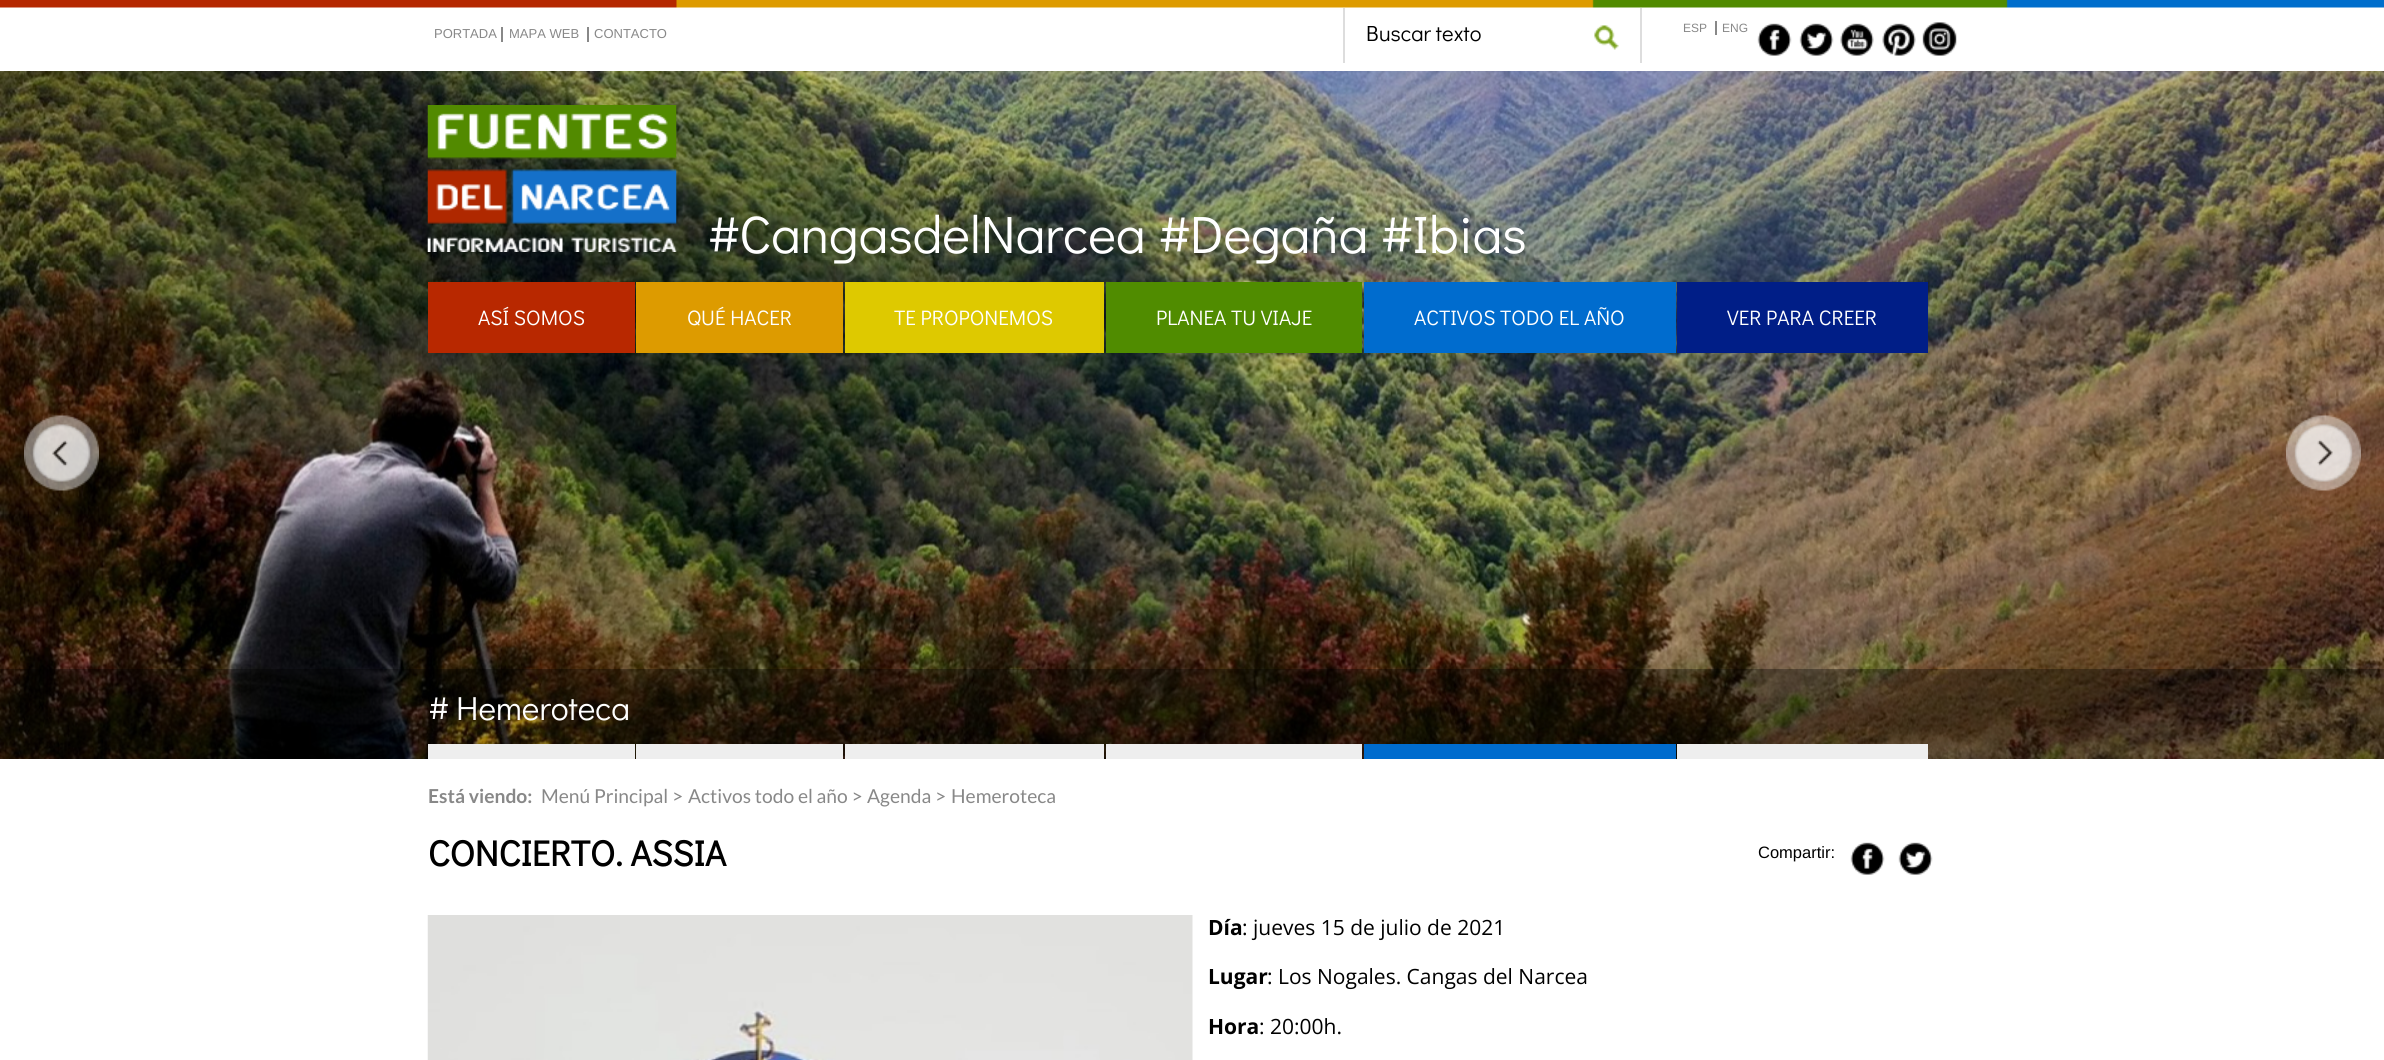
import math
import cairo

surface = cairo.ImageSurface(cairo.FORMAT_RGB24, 2384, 1060)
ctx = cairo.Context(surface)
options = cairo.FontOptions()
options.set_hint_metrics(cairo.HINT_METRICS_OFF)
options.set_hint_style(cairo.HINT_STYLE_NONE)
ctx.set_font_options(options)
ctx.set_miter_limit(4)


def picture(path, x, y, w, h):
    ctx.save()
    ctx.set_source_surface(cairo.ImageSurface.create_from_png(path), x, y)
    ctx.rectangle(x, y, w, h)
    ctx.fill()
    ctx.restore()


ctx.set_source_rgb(1, 1, 1)
ctx.paint()
picture("img1.png", 0, 0, 2384, 8)
ctx.select_font_face("Liberation Sans")
ctx.set_font_size(13)
ctx.set_source_rgb(0.533, 0.533, 0.533)
ctx.move_to(434, 38)
ctx.show_text("PORTADA")
ctx.move_to(509, 38)
ctx.show_text("MAPA WEB")
ctx.rectangle(501, 27, 2, 15)
ctx.fill()
ctx.move_to(594, 38)
ctx.show_text("CONTACTO")
ctx.rectangle(587, 27, 2, 15)
ctx.fill()
ctx.set_source_rgb(0.867, 0.867, 0.867)
ctx.rectangle(1640, 8, 2, 55)
ctx.fill()
ctx.rectangle(1343, 8, 2, 55)
ctx.fill()
ctx.select_font_face("Didact Gothic")
ctx.set_font_size(22)
ctx.set_source_rgb(0, 0, 0)
ctx.move_to(1366, 41)
ctx.show_text("Buscar texto")
picture("img2.png", 1594, 25, 25, 25)
ctx.select_font_face("Liberation Sans")
ctx.set_font_size(12)
ctx.set_source_rgb(0.533, 0.533, 0.533)
ctx.move_to(1683, 32)
ctx.show_text("ESP")
ctx.move_to(1722, 32)
ctx.show_text("ENG")
ctx.rectangle(1715, 21, 2, 14)
ctx.fill()
picture("img3.png", 1757, 23, 35, 33)
picture("img4.png", 1799, 23, 35, 33)
picture("img5.png", 1840, 23, 34, 33)
picture("img6.png", 1882, 23, 34, 33)
picture("img7.png", 1922, 22, 35, 34)
picture("img9.png", 0, 71, 2384, 688)
picture("img8.png", 427, 105, 250, 147)
ctx.select_font_face("Didact Gothic")
ctx.set_font_size(52.75)
ctx.set_source_rgb(1, 1, 1)
ctx.move_to(707, 253)
ctx.show_text("#CangasdelNarcea #Degaña #Ibias")
ctx.set_source_rgb(0.722, 0.157, 0)
ctx.rectangle(428, 282, 207, 71)
ctx.fill()
ctx.set_font_size(21)
ctx.set_source_rgb(1, 1, 1)
ctx.move_to(478, 325)
ctx.show_text("ASÍ SOMOS")
ctx.set_source_rgb(0.867, 0.608, 0)
ctx.rectangle(636, 282, 207, 71)
ctx.fill()
ctx.set_source_rgb(1, 1, 1)
ctx.move_to(687, 325)
ctx.show_text("QUÉ HACER")
ctx.set_source_rgb(0.871, 0.788, 0)
ctx.rectangle(845, 282, 259, 71)
ctx.fill()
ctx.set_source_rgb(1, 1, 1)
ctx.move_to(894, 325)
ctx.show_text("TE PROPONEMOS")
ctx.set_source_rgb(0.314, 0.549, 0)
ctx.rectangle(1106, 282, 256, 71)
ctx.fill()
ctx.set_source_rgb(1, 1, 1)
ctx.move_to(1156, 325)
ctx.show_text("PLANEA TU VIAJE")
ctx.set_source_rgb(0, 0.424, 0.808)
ctx.rectangle(1364, 282, 312, 71)
ctx.fill()
ctx.set_source_rgb(1, 1, 1)
ctx.move_to(1414, 325)
ctx.show_text("ACTIVOS TODO EL AÑO")
ctx.set_source_rgb(0, 0.118, 0.529)
ctx.rectangle(1677, 282, 251, 71)
ctx.fill()
ctx.set_source_rgb(1, 1, 1)
ctx.move_to(1727, 325)
ctx.show_text("VER PARA CREER")
picture("img10.png", 24, 415, 75, 76)
picture("img11.png", 2286, 415, 75, 76)
ctx.set_source_rgba(0, 0, 0, 0.33)
ctx.rectangle(0, 669, 2384, 90)
ctx.fill()
ctx.set_font_size(33.5)
ctx.set_source_rgb(1, 1, 1)
ctx.move_to(428, 720)
ctx.show_text("# Hemeroteca")
ctx.set_source_rgb(0.933, 0.933, 0.933)
ctx.rectangle(428, 744, 207, 15)
ctx.fill()
ctx.rectangle(636, 744, 207, 15)
ctx.fill()
ctx.rectangle(845, 744, 259, 15)
ctx.fill()
ctx.rectangle(1106, 744, 256, 15)
ctx.fill()
ctx.set_source_rgb(0, 0.424, 0.808)
ctx.rectangle(1364, 744, 312, 15)
ctx.fill()
ctx.set_source_rgb(0.933, 0.933, 0.933)
ctx.rectangle(1677, 744, 251, 15)
ctx.fill()
ctx.select_font_face("Lato", cairo.FONT_SLANT_NORMAL, cairo.FONT_WEIGHT_BOLD)
ctx.set_font_size(19.25)
ctx.set_source_rgb(0.533, 0.533, 0.533)
ctx.move_to(428, 803)
ctx.show_text("Está viendo:")
ctx.select_font_face("Lato")
ctx.move_to(541, 803)
ctx.show_text("Menú Principal >")
ctx.move_to(688, 803)
ctx.show_text("Activos todo el año >")
ctx.move_to(867, 803)
ctx.show_text("Agenda >")
ctx.move_to(951, 803)
ctx.show_text("Hemeroteca")
ctx.select_font_face("Didact Gothic", cairo.FONT_SLANT_NORMAL, cairo.FONT_WEIGHT_BOLD)
ctx.set_font_size(36)
ctx.set_source_rgb(0, 0, 0)
ctx.move_to(428, 866)
ctx.show_text("CONCIERTO. ASSIA")
ctx.select_font_face("Liberation Sans")
ctx.set_font_size(16.5)
ctx.move_to(1758, 858)
ctx.show_text("Compartir:")
picture("img3.png", 1850, 842, 35, 33)
picture("img12.png", 1898, 842, 35, 33)
picture("img13.png", 427, 915, 766, 145)
ctx.select_font_face("Open Sans", cairo.FONT_SLANT_NORMAL, cairo.FONT_WEIGHT_BOLD)
ctx.set_font_size(21)
ctx.move_to(1208, 935)
ctx.show_text("Día")
ctx.select_font_face("Open Sans")
ctx.move_to(1242, 935)
ctx.show_text(": jueves 15 de julio de 2021")
ctx.select_font_face("Open Sans", cairo.FONT_SLANT_NORMAL, cairo.FONT_WEIGHT_BOLD)
ctx.move_to(1208, 984)
ctx.show_text("Lugar")
ctx.select_font_face("Open Sans")
ctx.move_to(1267, 984)
ctx.show_text(": Los Nogales. Cangas del Narcea")
ctx.select_font_face("Open Sans", cairo.FONT_SLANT_NORMAL, cairo.FONT_WEIGHT_BOLD)
ctx.move_to(1208, 1034)
ctx.show_text("Hora")
ctx.select_font_face("Open Sans")
ctx.move_to(1259, 1034)
ctx.show_text(": 20:00h.")
surface.write_to_png("page.png")
